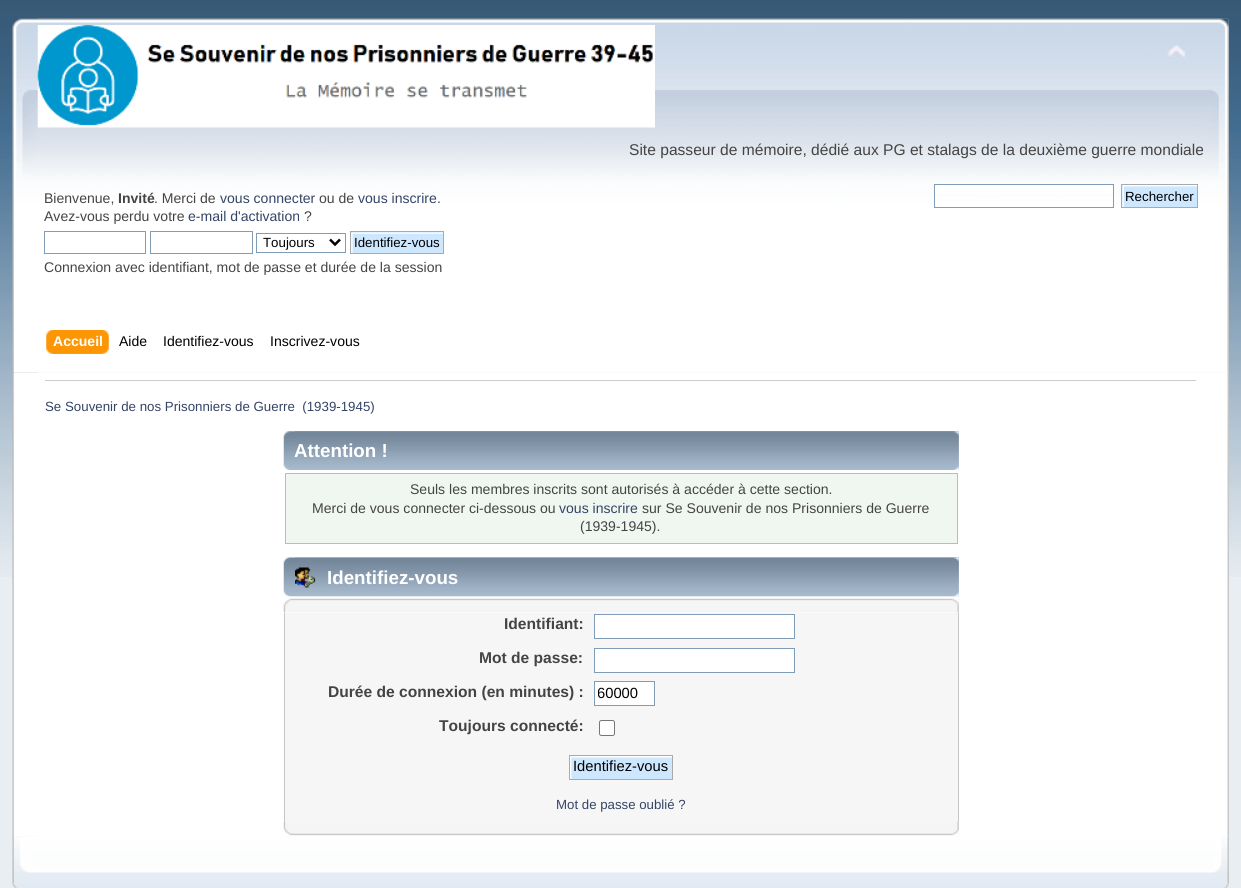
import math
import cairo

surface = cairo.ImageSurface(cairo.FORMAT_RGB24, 1241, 888)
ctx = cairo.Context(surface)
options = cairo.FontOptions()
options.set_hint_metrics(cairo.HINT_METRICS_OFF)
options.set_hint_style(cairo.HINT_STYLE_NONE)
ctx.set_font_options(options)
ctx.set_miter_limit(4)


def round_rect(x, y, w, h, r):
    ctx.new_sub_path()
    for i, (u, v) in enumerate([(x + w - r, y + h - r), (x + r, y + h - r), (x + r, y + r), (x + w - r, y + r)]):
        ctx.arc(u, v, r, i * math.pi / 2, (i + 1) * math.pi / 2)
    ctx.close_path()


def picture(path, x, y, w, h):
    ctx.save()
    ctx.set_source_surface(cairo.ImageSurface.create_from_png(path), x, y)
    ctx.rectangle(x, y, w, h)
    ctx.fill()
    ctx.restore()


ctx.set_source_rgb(0.914, 0.933, 0.949)
ctx.paint()
picture("img1.png", 0, 0, 1241, 577)
picture("img2.png", 12, 18, 1217, 355)
picture("img3.png", 37, 18, 1192, 355)
picture("img4.png", 37, 25, 618, 103)
picture("img5.png", 1167, 44, 19, 15)
ctx.select_font_face("Liberation Sans")
ctx.set_font_size(15.6)
ctx.set_source_rgb(0.267, 0.267, 0.267)
ctx.move_to(629, 155)
ctx.show_text("Site passeur de mémoire, dédié aux PG et stalags de la deuxième guerre mondiale")
ctx.set_font_size(14.05)
ctx.move_to(44, 203)
ctx.show_text("Bienvenue,")
ctx.select_font_face("Liberation Sans", cairo.FONT_SLANT_NORMAL, cairo.FONT_WEIGHT_BOLD)
ctx.move_to(118, 203)
ctx.show_text("Invité")
ctx.select_font_face("Liberation Sans")
ctx.move_to(154, 203)
ctx.show_text(". Merci de")
ctx.set_source_rgb(0.2, 0.267, 0.4)
ctx.move_to(220, 203)
ctx.show_text("vous connecter")
ctx.set_source_rgb(0.267, 0.267, 0.267)
ctx.move_to(319, 203)
ctx.show_text("ou de")
ctx.set_source_rgb(0.2, 0.267, 0.4)
ctx.move_to(358, 203)
ctx.show_text("vous inscrire")
ctx.set_source_rgb(0.267, 0.267, 0.267)
ctx.move_to(437, 203)
ctx.show_text(".")
ctx.move_to(44, 221)
ctx.show_text("Avez-vous perdu votre")
ctx.set_source_rgb(0.2, 0.267, 0.4)
ctx.move_to(188, 221)
ctx.show_text("e-mail d'activation")
ctx.set_source_rgb(0.267, 0.267, 0.267)
ctx.move_to(304, 221)
ctx.show_text("?")
ctx.rectangle(44.5, 231.5, 101, 22)
ctx.set_source_rgb(0.498, 0.616, 0.725)
ctx.set_line_width(1)
ctx.stroke()
ctx.rectangle(150.5, 231.5, 102, 22)
ctx.stroke()
ctx.rectangle(256.5, 233.5, 89, 19)
ctx.stroke()
ctx.new_path()
ctx.move_to(330, 239.5)
ctx.line_to(335, 244.5)
ctx.line_to(340, 239.5)
ctx.set_source_rgb(0, 0, 0)
ctx.set_line_width(2.5)
ctx.stroke()
ctx.set_font_size(13.3)
ctx.move_to(263, 247)
ctx.show_text("Toujours")
ctx.set_source_rgb(0.804, 0.906, 1)
ctx.rectangle(351, 232, 92, 21)
ctx.fill()
picture("img6.png", 351, 232, 92, 21)
ctx.rectangle(350.5, 231.5, 93, 22)
ctx.set_source_rgb(0.667, 0.667, 0.667)
ctx.set_line_width(1)
ctx.stroke()
ctx.set_source_rgb(0, 0, 0)
ctx.move_to(354, 247)
ctx.show_text("Identifiez-vous")
ctx.set_font_size(14.05)
ctx.set_source_rgb(0.267, 0.267, 0.267)
ctx.move_to(44, 272)
ctx.show_text("Connexion avec identifiant, mot de passe et durée de la session")
ctx.set_source_rgb(1, 1, 1)
ctx.rectangle(935, 185, 178, 9)
ctx.fill()
ctx.rectangle(934.5, 184.5, 179, 23)
ctx.set_source_rgb(0.498, 0.616, 0.725)
ctx.stroke()
ctx.set_source_rgb(0.804, 0.906, 1)
ctx.rectangle(1122, 185, 1, 22)
ctx.fill()
picture("img7.png", 1122, 185, 75, 22)
ctx.rectangle(1121.5, 184.5, 76, 23)
ctx.set_source_rgb(0.667, 0.667, 0.667)
ctx.stroke()
ctx.set_font_size(13.3)
ctx.set_source_rgb(0, 0, 0)
ctx.move_to(1125, 201)
ctx.show_text("Rechercher")
picture("img8.png", 52, 330, 57, 24)
picture("img9.png", 46, 330, 57, 24)
ctx.select_font_face("Liberation Sans", cairo.FONT_SLANT_NORMAL, cairo.FONT_WEIGHT_BOLD)
ctx.set_font_size(14.05)
ctx.set_source_rgb(1, 1, 1)
ctx.move_to(53, 346)
ctx.show_text("Accueil")
ctx.select_font_face("Liberation Sans")
ctx.set_source_rgb(0, 0, 0)
ctx.move_to(119, 346)
ctx.show_text("Aide")
ctx.move_to(163, 346)
ctx.show_text("Identifiez-vous")
ctx.move_to(270, 346)
ctx.show_text("Inscrivez-vous")
picture("img10.png", 12, 372, 1217, 465)
picture("img11.png", 38, 372, 1191, 465)
ctx.set_source_rgb(0.8, 0.8, 0.8)
ctx.rectangle(45, 380, 1151, 1)
ctx.fill()
ctx.set_font_size(13.3)
ctx.set_source_rgb(0.2, 0.267, 0.4)
ctx.move_to(45, 411)
ctx.show_text("Se Souvenir de nos Prisonniers de Guerre  (1939-1945)")
picture("img12.png", 283, 431, 676, 39)
picture("img13.png", 295, 431, 664, 39)
ctx.select_font_face("Liberation Sans", cairo.FONT_SLANT_NORMAL, cairo.FONT_WEIGHT_BOLD)
ctx.set_font_size(18.75)
ctx.set_source_rgb(1, 1, 1)
ctx.move_to(294, 457)
ctx.show_text("Attention !")
ctx.set_source_rgb(0.941, 0.965, 0.941)
ctx.rectangle(285.5, 473.5, 672, 70)
ctx.fill_preserve()
ctx.set_source_rgb(0.733, 0.733, 0.733)
ctx.stroke()
ctx.select_font_face("Liberation Sans")
ctx.set_font_size(14.05)
ctx.set_source_rgb(0.267, 0.267, 0.267)
ctx.move_to(410, 494)
ctx.show_text("Seuls les membres inscrits sont autorisés à accéder à cette section.")
ctx.move_to(312, 513)
ctx.show_text("Merci de vous connecter ci-dessous ou")
ctx.set_source_rgb(0.2, 0.267, 0.4)
ctx.move_to(559, 513)
ctx.show_text("vous inscrire")
ctx.set_source_rgb(0.267, 0.267, 0.267)
ctx.move_to(642, 513)
ctx.show_text("sur Se Souvenir de nos Prisonniers de Guerre")
ctx.move_to(580, 531)
ctx.show_text("(1939-1945).")
picture("img14.png", 283, 557, 676, 40)
picture("img15.png", 295, 557, 664, 40)
picture("img16.png", 295, 567, 21, 21)
ctx.select_font_face("Liberation Sans", cairo.FONT_SLANT_NORMAL, cairo.FONT_WEIGHT_BOLD)
ctx.set_font_size(18.75)
ctx.set_source_rgb(1, 1, 1)
ctx.move_to(327, 584)
ctx.show_text("Identifiez-vous")
picture("img17.png", 283, 598, 676, 15)
picture("img18.png", 951, 598, 8, 15)
ctx.set_source_rgb(0.961, 0.961, 0.961)
ctx.rectangle(285, 613, 673, 208)
ctx.fill()
ctx.set_source_rgb(0.773, 0.773, 0.773)
ctx.rectangle(958, 613, 1, 208)
ctx.fill()
ctx.rectangle(284, 613, 1, 208)
ctx.fill()
ctx.set_font_size(15.6)
ctx.set_source_rgb(0.267, 0.267, 0.267)
ctx.move_to(504, 629)
ctx.show_text("Identifiant:")
ctx.set_source_rgb(1, 1, 1)
ctx.rectangle(594.5, 614.5, 200, 24)
ctx.fill_preserve()
ctx.set_source_rgb(0.498, 0.616, 0.725)
ctx.stroke()
ctx.set_source_rgb(0.267, 0.267, 0.267)
ctx.move_to(479, 663)
ctx.show_text("Mot de passe:")
ctx.set_source_rgb(1, 1, 1)
ctx.rectangle(594.5, 648.5, 200, 24)
ctx.fill_preserve()
ctx.set_source_rgb(0.498, 0.616, 0.725)
ctx.stroke()
ctx.set_source_rgb(0.267, 0.267, 0.267)
ctx.move_to(328, 697)
ctx.show_text("Durée de connexion (en minutes) :")
ctx.set_source_rgb(1, 1, 1)
ctx.rectangle(594.5, 681.5, 60, 24)
ctx.fill_preserve()
ctx.set_source_rgb(0.498, 0.616, 0.725)
ctx.stroke()
ctx.save()
ctx.rectangle(598, 685, 53, 18)
ctx.clip()
ctx.select_font_face("Liberation Sans")
ctx.set_font_size(14.75)
ctx.set_source_rgb(0, 0, 0)
ctx.move_to(597, 698)
ctx.show_text("60000")
ctx.restore()
ctx.set_source_rgb(0.267, 0.267, 0.267)
ctx.move_to(439, 731)
ctx.show_text("Toujours connecté:")
ctx.set_source_rgb(1, 1, 1)
round_rect(599.5, 720.5, 15, 15, 2)
ctx.fill_preserve()
ctx.set_source_rgb(0.463, 0.463, 0.463)
ctx.stroke()
picture("img19.png", 570, 756, 102, 23)
ctx.rectangle(569.5, 755.5, 103, 24)
ctx.set_source_rgb(0.667, 0.667, 0.667)
ctx.stroke()
ctx.select_font_face("Liberation Sans")
ctx.set_font_size(14.75)
ctx.set_source_rgb(0, 0, 0)
ctx.move_to(573, 771)
ctx.show_text("Identifiez-vous")
ctx.set_font_size(13.25)
ctx.set_source_rgb(0.2, 0.267, 0.4)
ctx.move_to(556, 809)
ctx.show_text("Mot de passe oublié ?")
picture("img20.png", 283, 821, 676, 15)
picture("img21.png", 951, 821, 8, 15)
picture("img22.png", 12, 836, 1217, 52)
picture("img23.png", 1214, 836, 15, 52)
surface.write_to_png("page.png")
